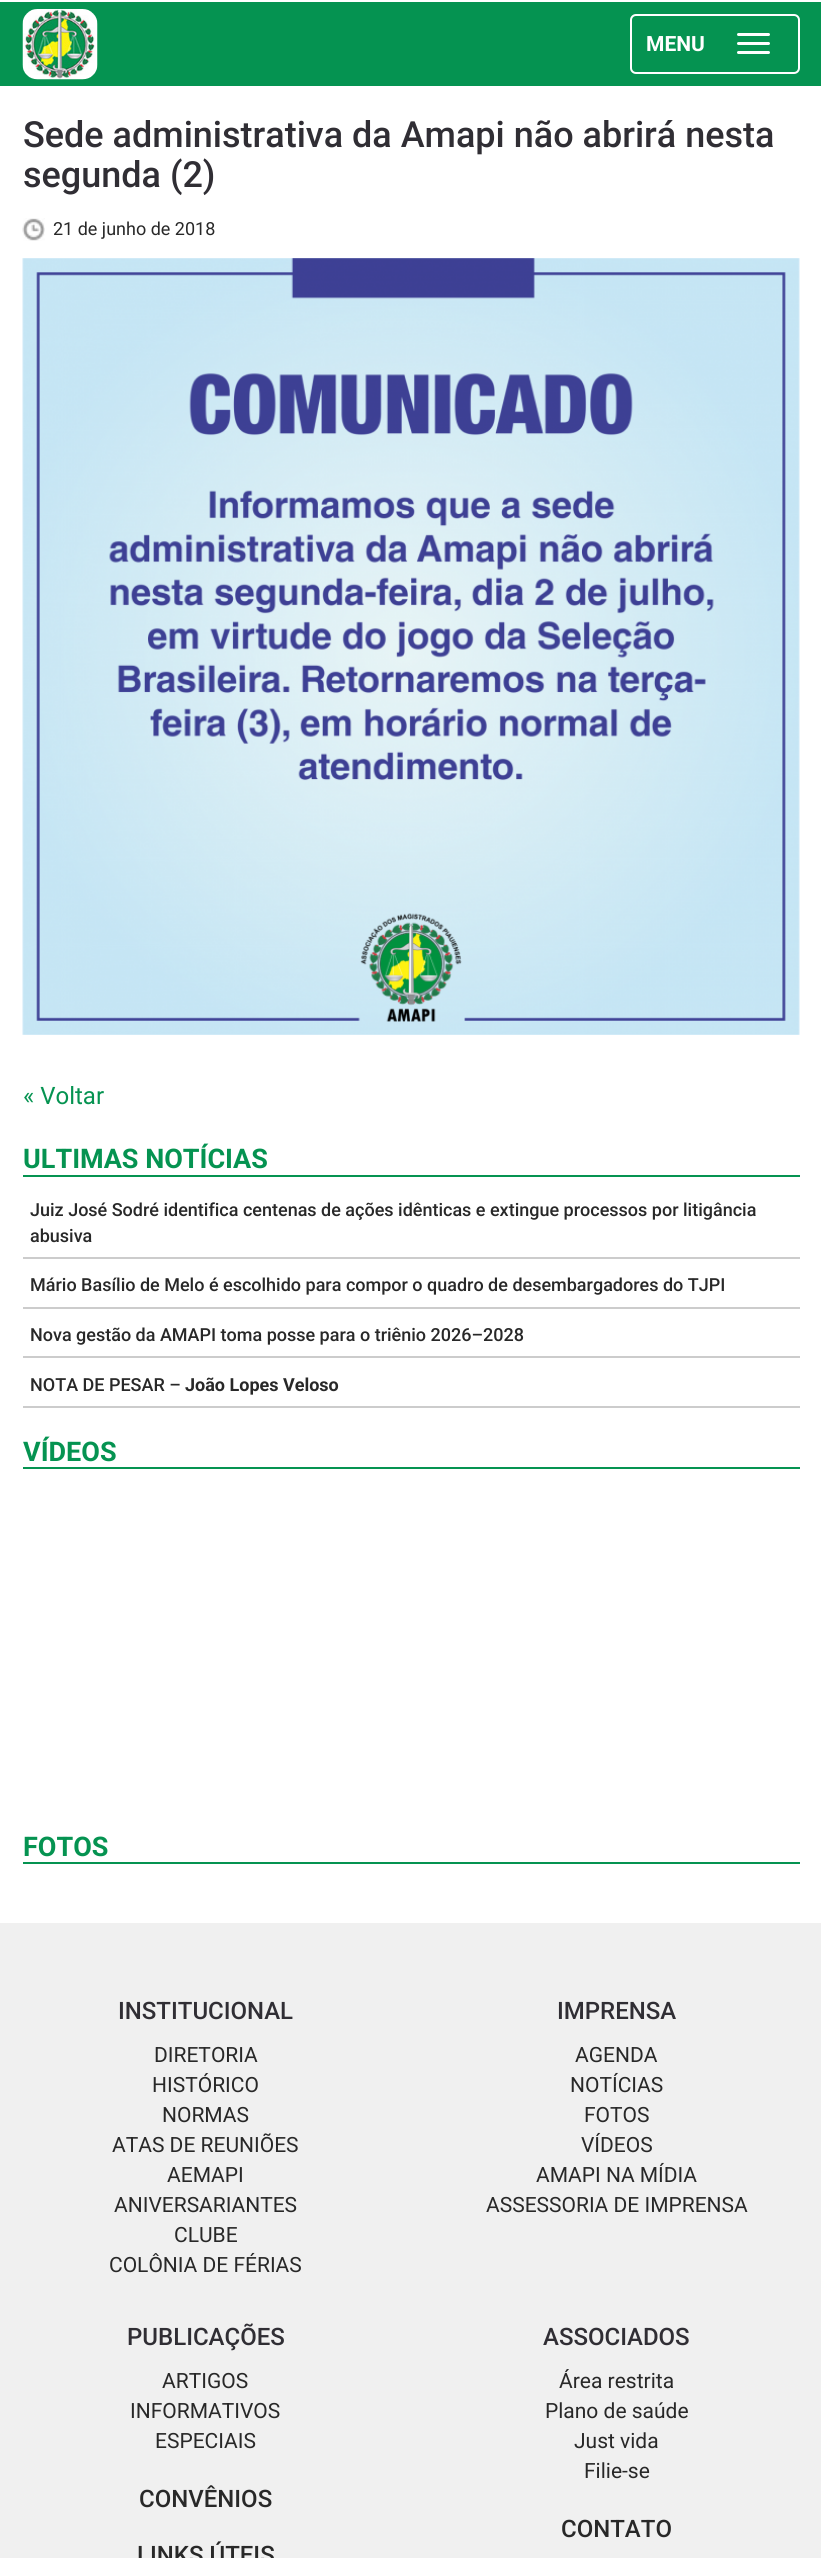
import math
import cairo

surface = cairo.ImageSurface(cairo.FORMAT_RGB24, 821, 2558)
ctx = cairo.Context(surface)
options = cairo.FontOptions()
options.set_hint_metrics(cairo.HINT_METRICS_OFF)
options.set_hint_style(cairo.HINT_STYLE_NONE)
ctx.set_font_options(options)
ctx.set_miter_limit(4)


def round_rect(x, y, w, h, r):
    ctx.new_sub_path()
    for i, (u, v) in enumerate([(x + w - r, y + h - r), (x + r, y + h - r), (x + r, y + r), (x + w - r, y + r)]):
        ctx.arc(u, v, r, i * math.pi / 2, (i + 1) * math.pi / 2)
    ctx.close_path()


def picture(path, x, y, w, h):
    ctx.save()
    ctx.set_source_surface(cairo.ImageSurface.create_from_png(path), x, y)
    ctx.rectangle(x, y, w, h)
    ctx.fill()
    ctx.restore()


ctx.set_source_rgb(1, 1, 1)
ctx.paint()
ctx.set_source_rgb(0.02, 0.576, 0.318)
ctx.rectangle(0, 2, 821, 84)
ctx.fill()
picture("img1.png", 22, 9, 76, 71)
round_rect(631, 15, 168, 58, 5)
ctx.set_source_rgb(1, 1, 1)
ctx.stroke()
ctx.select_font_face("Roboto", cairo.FONT_SLANT_NORMAL, cairo.FONT_WEIGHT_BOLD)
ctx.set_font_size(21)
ctx.move_to(646, 51)
ctx.show_text("MENU")
round_rect(737, 33, 33, 3, 1.5)
ctx.fill()
round_rect(737, 42, 33, 3, 1.5)
ctx.fill()
round_rect(737, 51, 33, 3, 1.5)
ctx.fill()
ctx.select_font_face("Roboto Medium")
ctx.set_font_size(36)
ctx.set_source_rgb(0.188, 0.18, 0.204)
ctx.move_to(23, 147)
ctx.show_text("Sede administrativa da Amapi não abrirá nesta")
ctx.move_to(23, 187)
ctx.show_text("segunda (2)")
picture("img2.png", 22, 218, 23, 23)
ctx.select_font_face("Roboto")
ctx.set_font_size(18)
ctx.set_source_rgb(0.157, 0.157, 0.157)
ctx.move_to(53, 235)
ctx.show_text("21 de junho de 2018")
picture("img3.png", 22, 258, 778, 777)
ctx.set_font_size(24)
ctx.set_source_rgb(0.02, 0.576, 0.318)
ctx.move_to(23, 1104)
ctx.show_text("« Voltar")
ctx.rectangle(23, 1175, 777, 2)
ctx.fill()
ctx.select_font_face("Roboto", cairo.FONT_SLANT_NORMAL, cairo.FONT_WEIGHT_BOLD)
ctx.set_font_size(27)
ctx.move_to(23, 1168)
ctx.show_text("ULTIMAS NOTÍCIAS")
ctx.set_source_rgb(0.8, 0.8, 0.8)
ctx.rectangle(23, 1257, 777, 2)
ctx.fill()
ctx.select_font_face("Roboto Medium")
ctx.set_font_size(18)
ctx.set_source_rgb(0.157, 0.157, 0.157)
ctx.move_to(30, 1216)
ctx.show_text("Juiz José Sodré identifica centenas de ações idênticas e extingue processos por litigância")
ctx.move_to(30, 1242)
ctx.show_text("abusiva")
ctx.set_source_rgb(0.8, 0.8, 0.8)
ctx.rectangle(23, 1307, 777, 2)
ctx.fill()
ctx.set_source_rgb(0.157, 0.157, 0.157)
ctx.move_to(30, 1291)
ctx.show_text("Mário Basílio de Melo é escolhido para compor o quadro de desembargadores do TJPI")
ctx.set_source_rgb(0.8, 0.8, 0.8)
ctx.rectangle(23, 1356, 777, 2)
ctx.fill()
ctx.set_source_rgb(0.157, 0.157, 0.157)
ctx.move_to(30, 1341)
ctx.show_text("Nova gestão da AMAPI toma posse para o triênio 2026–2028")
ctx.set_source_rgb(0.8, 0.8, 0.8)
ctx.rectangle(23, 1406, 777, 2)
ctx.fill()
ctx.set_source_rgb(0.157, 0.157, 0.157)
ctx.move_to(30, 1391)
ctx.show_text("NOTA DE PESAR –")
ctx.select_font_face("Roboto", cairo.FONT_SLANT_NORMAL, cairo.FONT_WEIGHT_BOLD)
ctx.move_to(185, 1391)
ctx.show_text("João Lopes Veloso")
ctx.set_source_rgb(0.02, 0.576, 0.318)
ctx.rectangle(23, 1467, 777, 2)
ctx.fill()
ctx.set_font_size(27)
ctx.move_to(23, 1461)
ctx.show_text("VÍDEOS")
ctx.rectangle(23, 1862, 777, 2)
ctx.fill()
ctx.move_to(23, 1856)
ctx.show_text("FOTOS")
ctx.set_source_rgb(0.941, 0.941, 0.941)
ctx.rectangle(0, 1923, 821, 635)
ctx.fill()
ctx.select_font_face("Roboto Medium")
ctx.set_font_size(24)
ctx.set_source_rgb(0.188, 0.18, 0.204)
ctx.move_to(118, 2019)
ctx.show_text("INSTITUCIONAL")
ctx.select_font_face("Roboto")
ctx.set_font_size(21)
ctx.set_source_rgb(0.157, 0.157, 0.157)
ctx.move_to(154, 2062)
ctx.show_text("DIRETORIA")
ctx.move_to(152, 2092)
ctx.show_text("HISTÓRICO")
ctx.move_to(162, 2122)
ctx.show_text("NORMAS")
ctx.move_to(112, 2152)
ctx.show_text("ATAS DE REUNIÕES")
ctx.move_to(167, 2182)
ctx.show_text("AEMAPI")
ctx.move_to(114, 2212)
ctx.show_text("ANIVERSARIANTES")
ctx.move_to(174, 2242)
ctx.show_text("CLUBE")
ctx.move_to(109, 2272)
ctx.show_text("COLÔNIA DE FÉRIAS")
ctx.select_font_face("Roboto Medium")
ctx.set_font_size(24)
ctx.set_source_rgb(0.188, 0.18, 0.204)
ctx.move_to(557, 2019)
ctx.show_text("IMPRENSA")
ctx.select_font_face("Roboto")
ctx.set_font_size(21)
ctx.set_source_rgb(0.157, 0.157, 0.157)
ctx.move_to(575, 2062)
ctx.show_text("AGENDA")
ctx.move_to(570, 2092)
ctx.show_text("NOTÍCIAS")
ctx.move_to(584, 2122)
ctx.show_text("FOTOS")
ctx.move_to(581, 2152)
ctx.show_text("VÍDEOS")
ctx.move_to(536, 2182)
ctx.show_text("AMAPI NA MÍDIA")
ctx.move_to(486, 2212)
ctx.show_text("ASSESSORIA DE IMPRENSA")
ctx.select_font_face("Roboto Medium")
ctx.set_font_size(24)
ctx.set_source_rgb(0.188, 0.18, 0.204)
ctx.move_to(127, 2345)
ctx.show_text("PUBLICAÇÕES")
ctx.select_font_face("Roboto")
ctx.set_font_size(21)
ctx.set_source_rgb(0.157, 0.157, 0.157)
ctx.move_to(162, 2388)
ctx.show_text("ARTIGOS")
ctx.move_to(130, 2418)
ctx.show_text("INFORMATIVOS")
ctx.move_to(155, 2448)
ctx.show_text("ESPECIAIS")
ctx.select_font_face("Roboto Medium")
ctx.set_font_size(24)
ctx.move_to(139, 2507)
ctx.show_text("CONVÊNIOS")
ctx.move_to(137, 2563)
ctx.show_text("LINKS ÚTEIS")
ctx.set_source_rgb(0.188, 0.18, 0.204)
ctx.move_to(543, 2345)
ctx.show_text("ASSOCIADOS")
ctx.select_font_face("Roboto")
ctx.set_font_size(21)
ctx.set_source_rgb(0.157, 0.157, 0.157)
ctx.move_to(559, 2388)
ctx.show_text("Área restrita")
ctx.move_to(545, 2418)
ctx.show_text("Plano de saúde")
ctx.move_to(574, 2448)
ctx.show_text("Just vida")
ctx.move_to(584, 2478)
ctx.show_text("Filie-se")
ctx.select_font_face("Roboto Medium")
ctx.set_font_size(24)
ctx.move_to(561, 2537)
ctx.show_text("CONTATO")
surface.write_to_png("page.png")
